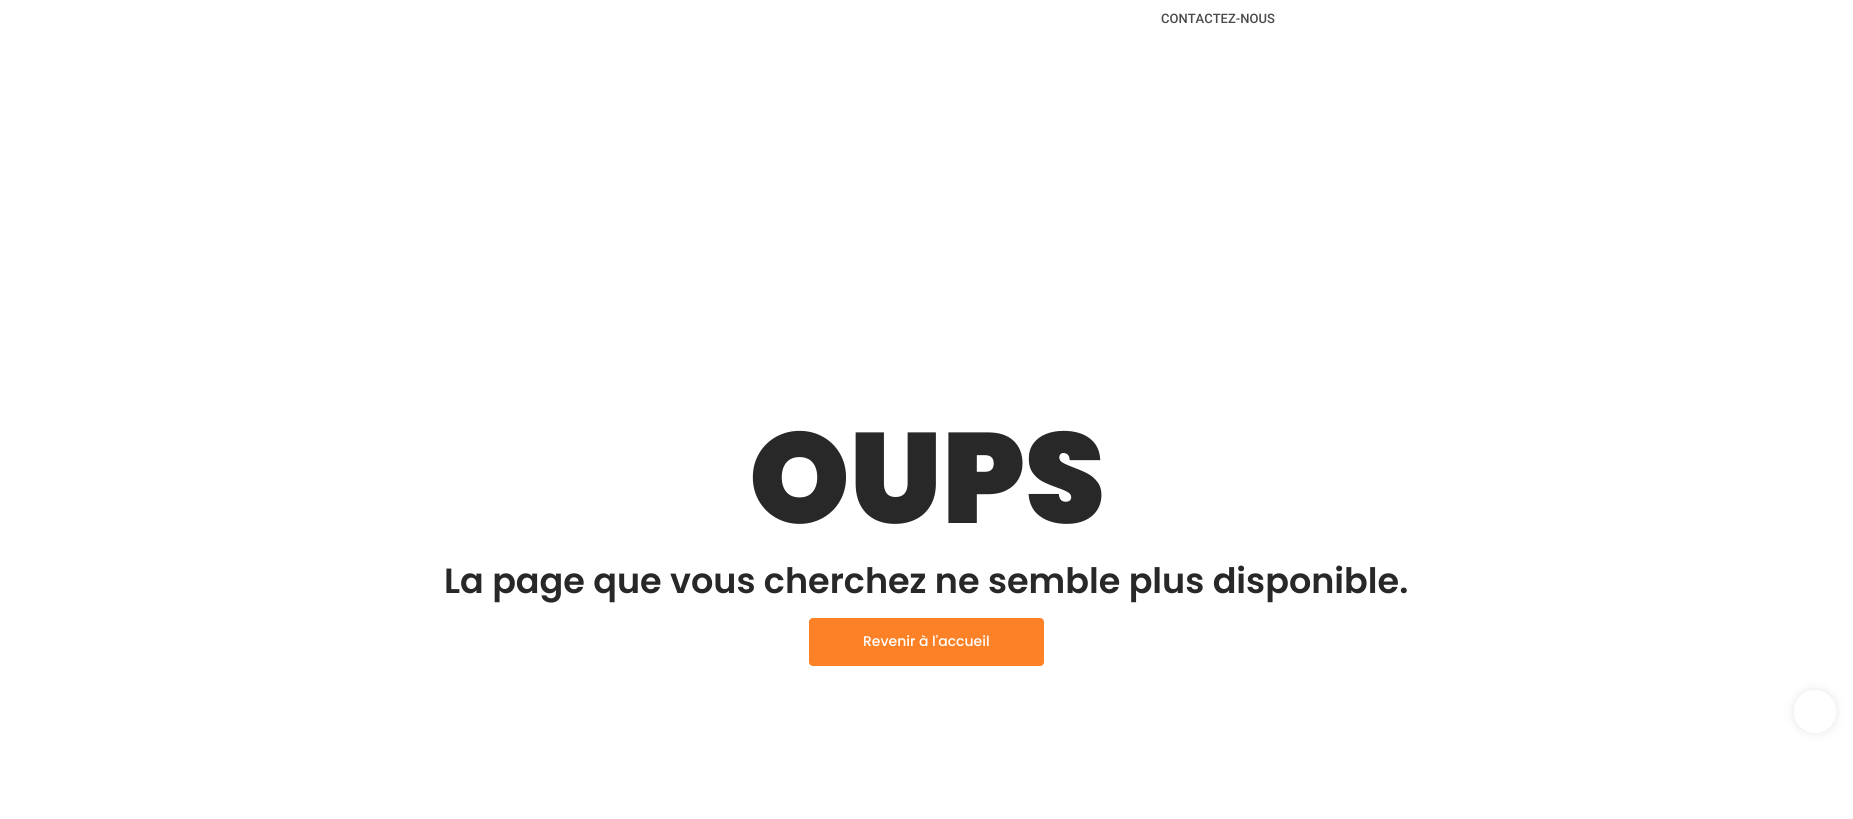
import math
import cairo

surface = cairo.ImageSurface(cairo.FORMAT_RGB24, 1853, 819)
ctx = cairo.Context(surface)
options = cairo.FontOptions()
options.set_hint_metrics(cairo.HINT_METRICS_OFF)
options.set_hint_style(cairo.HINT_STYLE_NONE)
ctx.set_font_options(options)
ctx.set_miter_limit(4)


def round_rect(x, y, w, h, r):
    ctx.new_sub_path()
    for i, (u, v) in enumerate([(x + w - r, y + h - r), (x + r, y + h - r), (x + r, y + r), (x + w - r, y + r)]):
        ctx.arc(u, v, r, i * math.pi / 2, (i + 1) * math.pi / 2)
    ctx.close_path()


def shadow(x, y, w, h, r, blur, alpha):
    ctx.push_group_with_content(cairo.CONTENT_ALPHA)
    ctx.set_operator(cairo.OPERATOR_SOURCE)
    for i in range(15, -16, -2):
        e = blur * i / 6
        if min(w, h) + 2 * e > 0:
            ctx.set_source_rgba(0, 0, 0, alpha * math.erfc((i - 1) / 8.5) / 2)
            round_rect(x - e, y - e, w + 2 * e, h + 2 * e, max(0, min(r + e + blur * .6, min(w, h) / 2 + e)))
            ctx.fill()
    ctx.mask(ctx.pop_group())


ctx.set_source_rgb(1, 1, 1)
ctx.paint()
ctx.select_font_face("Roboto Medium")
ctx.set_font_size(13)
ctx.set_source_rgb(0.29, 0.29, 0.29)
ctx.move_to(1161, 23)
ctx.show_text("CONTACTEZ-NOUS")
ctx.select_font_face("Poppins Black")
ctx.set_font_size(128)
ctx.set_source_rgb(0.157, 0.157, 0.157)
ctx.move_to(749, 523)
ctx.show_text("OUPS")
ctx.select_font_face("Poppins SemiBold")
ctx.set_font_size(35)
ctx.move_to(444, 593)
ctx.show_text("La page que vous cherchez ne semble plus disponible.")
ctx.set_source_rgb(0.992, 0.506, 0.153)
round_rect(809, 618, 235, 48, 4)
ctx.fill()
ctx.select_font_face("Poppins Medium")
ctx.set_font_size(14)
ctx.set_source_rgb(1, 1, 1)
ctx.move_to(863, 646)
ctx.show_text("Revenir à l'accueil")
ctx.save()
ctx.set_fill_rule(cairo.FILL_RULE_EVEN_ODD)
ctx.new_path()
ctx.move_to(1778, 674)
ctx.line_to(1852, 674)
ctx.line_to(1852, 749)
ctx.line_to(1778, 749)
ctx.close_path()
ctx.move_to(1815, 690)
ctx.curve_to(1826.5, 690, 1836, 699.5, 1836, 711)
ctx.line_to(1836, 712)
ctx.curve_to(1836, 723.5, 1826.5, 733, 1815, 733)
ctx.curve_to(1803.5, 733, 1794, 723.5, 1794, 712)
ctx.line_to(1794, 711)
ctx.curve_to(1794, 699.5, 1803.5, 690, 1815, 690)
ctx.close_path()
ctx.clip()
ctx.set_source_rgb(0.812, 0.812, 0.812)
shadow(1794, 690, 42, 43, 21, 5, 0.5)
ctx.restore()
surface.write_to_png("page.png")
